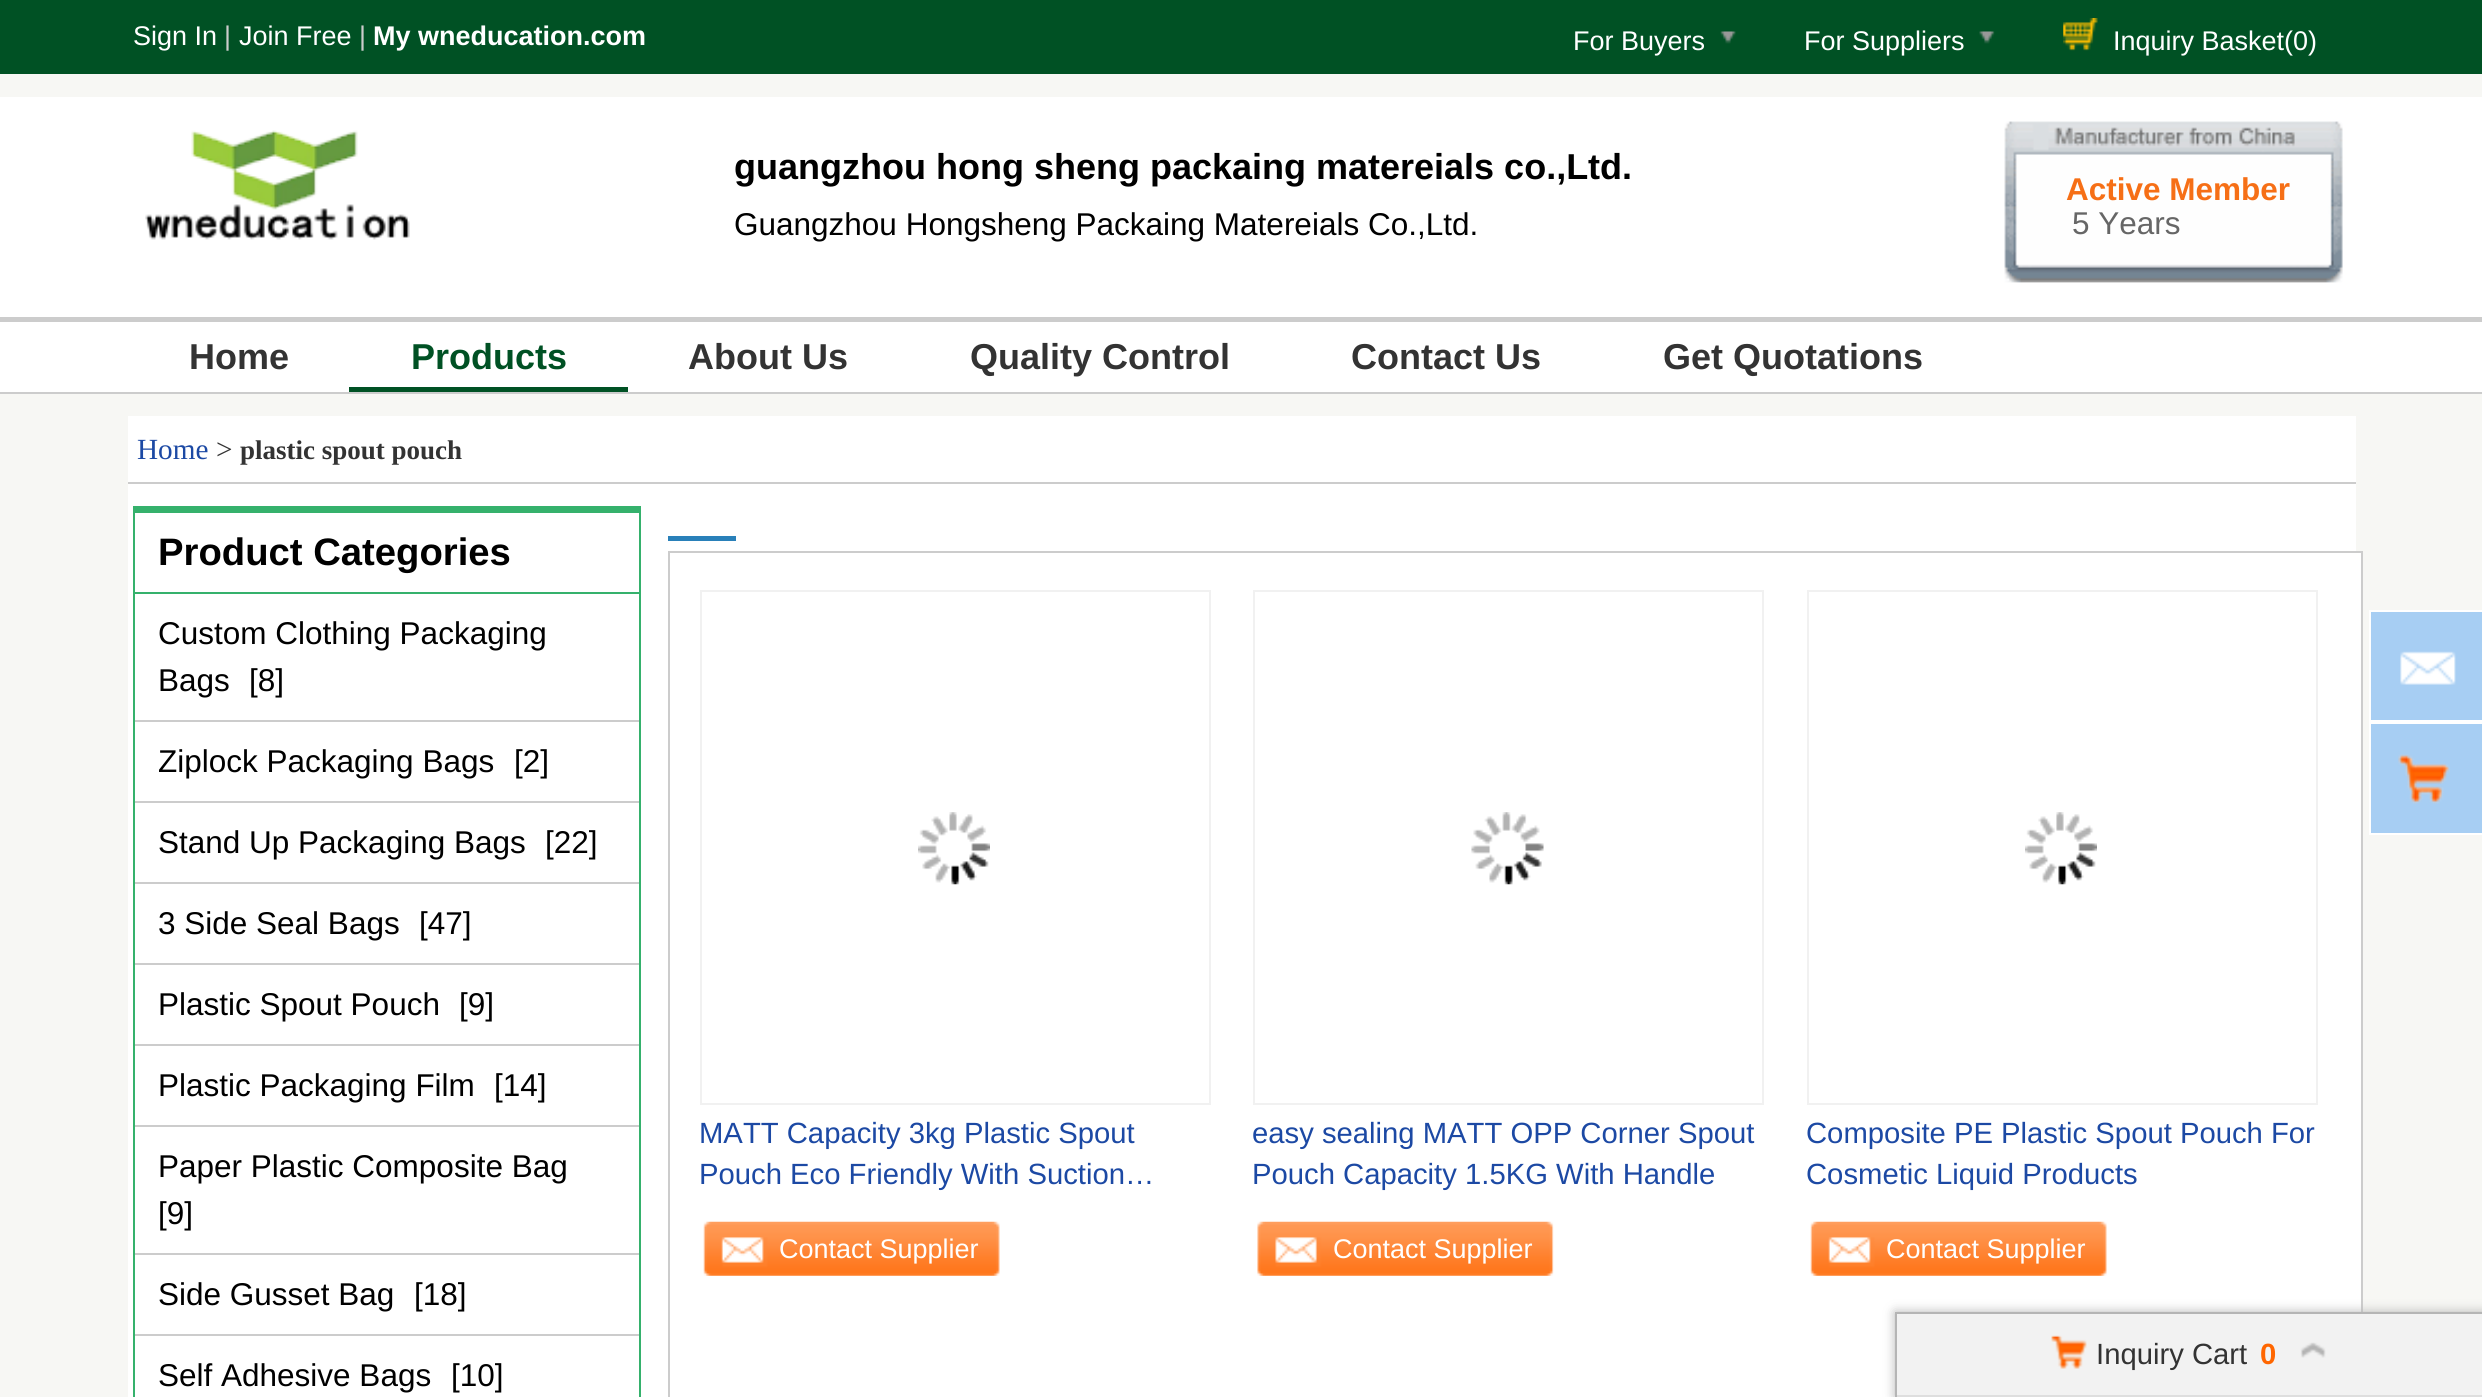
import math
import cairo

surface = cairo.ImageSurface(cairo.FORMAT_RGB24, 2482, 1397)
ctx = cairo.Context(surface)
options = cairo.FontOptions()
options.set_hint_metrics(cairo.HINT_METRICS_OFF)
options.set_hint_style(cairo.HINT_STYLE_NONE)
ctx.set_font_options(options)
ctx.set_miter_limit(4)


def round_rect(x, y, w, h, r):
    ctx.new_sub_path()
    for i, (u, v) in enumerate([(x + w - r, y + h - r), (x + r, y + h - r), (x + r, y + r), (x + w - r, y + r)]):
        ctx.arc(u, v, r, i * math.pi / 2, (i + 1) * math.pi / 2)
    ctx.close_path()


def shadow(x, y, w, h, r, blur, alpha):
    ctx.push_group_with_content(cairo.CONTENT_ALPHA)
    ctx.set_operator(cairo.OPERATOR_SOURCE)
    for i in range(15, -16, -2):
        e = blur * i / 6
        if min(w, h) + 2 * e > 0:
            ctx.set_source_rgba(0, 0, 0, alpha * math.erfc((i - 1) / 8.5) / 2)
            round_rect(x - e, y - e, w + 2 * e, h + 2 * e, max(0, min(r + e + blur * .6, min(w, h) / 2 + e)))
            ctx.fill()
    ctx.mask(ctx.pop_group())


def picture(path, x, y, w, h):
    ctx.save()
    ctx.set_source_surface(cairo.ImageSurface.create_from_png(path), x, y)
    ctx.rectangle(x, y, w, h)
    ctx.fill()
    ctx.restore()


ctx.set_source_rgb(0.965, 0.965, 0.957)
ctx.paint()
ctx.set_source_rgb(0, 0.318, 0.141)
ctx.rectangle(0, 0, 2482, 74)
ctx.fill()
ctx.select_font_face("Liberation Sans")
ctx.set_font_size(27)
ctx.set_source_rgb(1, 1, 1)
ctx.move_to(133, 45)
ctx.show_text("Sign In")
ctx.set_source_rgb(0.8, 0.8, 0.8)
ctx.move_to(224, 45)
ctx.show_text("|")
ctx.set_source_rgb(1, 1, 1)
ctx.move_to(239, 45)
ctx.show_text("Join Free")
ctx.set_source_rgb(0.8, 0.8, 0.8)
ctx.move_to(359, 45)
ctx.show_text("|")
ctx.select_font_face("Liberation Sans", cairo.FONT_SLANT_NORMAL, cairo.FONT_WEIGHT_BOLD)
ctx.set_source_rgb(1, 1, 1)
ctx.move_to(373, 45)
ctx.show_text("My wneducation.com")
ctx.select_font_face("Liberation Sans")
ctx.move_to(1573, 50)
ctx.show_text("For Buyers")
picture("img1.png", 1720, 31, 16, 13)
ctx.move_to(1804, 50)
ctx.show_text("For Suppliers")
picture("img2.png", 1979, 31, 16, 13)
picture("img3.png", 2063, 18, 35, 33)
ctx.move_to(2113, 50)
ctx.show_text("Inquiry Basket(0)")
ctx.rectangle(0, 97, 2482, 220)
ctx.fill()
picture("img4.png", 145, 130, 265, 110)
ctx.select_font_face("Liberation Sans", cairo.FONT_SLANT_NORMAL, cairo.FONT_WEIGHT_BOLD)
ctx.set_font_size(36)
ctx.set_source_rgb(0, 0, 0)
ctx.move_to(734, 179)
ctx.show_text("guangzhou hong sheng packaing matereials co.,Ltd.")
ctx.select_font_face("Liberation Sans")
ctx.set_font_size(31.5)
ctx.move_to(734, 235)
ctx.show_text("Guangzhou Hongsheng Packaing Matereials Co.,Ltd.")
picture("img5.png", 2004, 121, 339, 162)
ctx.select_font_face("Liberation Sans", cairo.FONT_SLANT_NORMAL, cairo.FONT_WEIGHT_BOLD)
ctx.set_source_rgb(0.961, 0.435, 0.086)
ctx.move_to(2066, 200)
ctx.show_text("Active Member")
ctx.select_font_face("Liberation Sans")
ctx.set_source_rgb(0.4, 0.4, 0.4)
ctx.move_to(2072, 234)
ctx.show_text("5 Years")
ctx.set_source_rgb(1, 1, 1)
ctx.rectangle(0, 322, 2482, 70)
ctx.fill()
ctx.set_source_rgb(0.8, 0.8, 0.8)
ctx.rectangle(0, 317, 2482, 5)
ctx.fill()
ctx.rectangle(0, 392, 2482, 2)
ctx.fill()
ctx.select_font_face("Liberation Sans", cairo.FONT_SLANT_NORMAL, cairo.FONT_WEIGHT_BOLD)
ctx.set_font_size(36)
ctx.set_source_rgb(0.2, 0.2, 0.2)
ctx.move_to(189, 369)
ctx.show_text("Home")
ctx.set_source_rgb(0, 0.318, 0.141)
ctx.rectangle(349, 387, 279, 5)
ctx.fill()
ctx.move_to(411, 369)
ctx.show_text("Products")
ctx.set_source_rgb(0.2, 0.2, 0.2)
ctx.move_to(688, 369)
ctx.show_text("About Us")
ctx.move_to(970, 369)
ctx.show_text("Quality Control")
ctx.move_to(1351, 369)
ctx.show_text("Contact Us")
ctx.move_to(1663, 369)
ctx.show_text("Get Quotations")
ctx.set_source_rgb(1, 1, 1)
ctx.rectangle(128, 416, 2228, 981)
ctx.fill()
ctx.set_source_rgb(0.8, 0.8, 0.8)
ctx.rectangle(128, 482, 2228, 2)
ctx.fill()
ctx.select_font_face("Liberation Serif")
ctx.set_font_size(29.25)
ctx.set_source_rgb(0.11, 0.286, 0.643)
ctx.move_to(137, 459)
ctx.show_text("Home")
ctx.set_source_rgb(0.2, 0.2, 0.2)
ctx.move_to(216, 459)
ctx.show_text(">")
ctx.select_font_face("Liberation Serif", cairo.FONT_SLANT_NORMAL, cairo.FONT_WEIGHT_BOLD)
ctx.set_font_size(27)
ctx.move_to(240, 459)
ctx.show_text("plastic spout pouch")
ctx.set_source_rgb(0.208, 0.694, 0.424)
ctx.rectangle(133, 506, 508, 7)
ctx.fill()
ctx.rectangle(639, 506, 2, 891)
ctx.fill()
ctx.rectangle(133, 506, 2, 891)
ctx.fill()
ctx.rectangle(135, 592, 504, 2)
ctx.fill()
ctx.select_font_face("Liberation Sans", cairo.FONT_SLANT_NORMAL, cairo.FONT_WEIGHT_BOLD)
ctx.set_font_size(38.25)
ctx.set_source_rgb(0, 0, 0)
ctx.move_to(158, 565)
ctx.show_text("Product Categories")
ctx.set_source_rgb(0.8, 0.8, 0.8)
ctx.rectangle(135, 720, 504, 2)
ctx.fill()
ctx.select_font_face("Liberation Sans")
ctx.set_font_size(31.5)
ctx.set_source_rgb(0, 0, 0)
ctx.move_to(158, 644)
ctx.show_text("Custom Clothing Packaging")
ctx.move_to(158, 691)
ctx.show_text("Bags")
ctx.move_to(249, 691)
ctx.show_text("[8]")
ctx.set_source_rgb(0.8, 0.8, 0.8)
ctx.rectangle(135, 801, 504, 2)
ctx.fill()
ctx.set_source_rgb(0, 0, 0)
ctx.move_to(158, 772)
ctx.show_text("Ziplock Packaging Bags")
ctx.move_to(514, 772)
ctx.show_text("[2]")
ctx.set_source_rgb(0.8, 0.8, 0.8)
ctx.rectangle(135, 882, 504, 2)
ctx.fill()
ctx.set_source_rgb(0, 0, 0)
ctx.move_to(158, 853)
ctx.show_text("Stand Up Packaging Bags")
ctx.move_to(545, 853)
ctx.show_text("[22]")
ctx.set_source_rgb(0.8, 0.8, 0.8)
ctx.rectangle(135, 963, 504, 2)
ctx.fill()
ctx.set_source_rgb(0, 0, 0)
ctx.move_to(158, 934)
ctx.show_text("3 Side Seal Bags")
ctx.move_to(419, 934)
ctx.show_text("[47]")
ctx.set_source_rgb(0.8, 0.8, 0.8)
ctx.rectangle(135, 1044, 504, 2)
ctx.fill()
ctx.set_source_rgb(0, 0, 0)
ctx.move_to(158, 1015)
ctx.show_text("Plastic Spout Pouch")
ctx.move_to(459, 1015)
ctx.show_text("[9]")
ctx.set_source_rgb(0.8, 0.8, 0.8)
ctx.rectangle(135, 1125, 504, 2)
ctx.fill()
ctx.set_source_rgb(0, 0, 0)
ctx.move_to(158, 1096)
ctx.show_text("Plastic Packaging Film")
ctx.move_to(494, 1096)
ctx.show_text("[14]")
ctx.set_source_rgb(0.8, 0.8, 0.8)
ctx.rectangle(135, 1253, 504, 2)
ctx.fill()
ctx.set_source_rgb(0, 0, 0)
ctx.move_to(158, 1177)
ctx.show_text("Paper Plastic Composite Bag")
ctx.move_to(158, 1224)
ctx.show_text("[9]")
ctx.set_source_rgb(0.8, 0.8, 0.8)
ctx.rectangle(135, 1334, 504, 2)
ctx.fill()
ctx.set_source_rgb(0, 0, 0)
ctx.move_to(158, 1305)
ctx.show_text("Side Gusset Bag")
ctx.move_to(414, 1305)
ctx.show_text("[18]")
ctx.move_to(158, 1386)
ctx.show_text("Self Adhesive Bags")
ctx.move_to(451, 1386)
ctx.show_text("[10]")
ctx.set_source_rgb(0.655, 0.808, 0.953)
ctx.rectangle(2370, 611, 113, 110)
ctx.fill_preserve()
ctx.set_source_rgb(1, 1, 1)
ctx.stroke()
picture("img6.png", 2400, 651, 56, 34)
ctx.set_source_rgb(0.655, 0.808, 0.953)
ctx.rectangle(2370, 723, 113, 111)
ctx.fill_preserve()
ctx.set_source_rgb(1, 1, 1)
ctx.stroke()
picture("img7.png", 2398, 754, 52, 50)
ctx.set_source_rgb(0.161, 0.502, 0.725)
ctx.rectangle(668, 536, 68, 5)
ctx.fill()
ctx.set_source_rgb(1, 1, 1)
ctx.rectangle(2356, 553, 5, 844)
ctx.fill()
ctx.rectangle(669, 552, 1693, 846)
ctx.set_source_rgb(0.8, 0.8, 0.8)
ctx.stroke()
ctx.rectangle(701, 591, 509, 513)
ctx.set_source_rgb(0.945, 0.945, 0.945)
ctx.stroke()
picture("img8.png", 918, 812, 72, 73)
ctx.set_font_size(29.25)
ctx.set_source_rgb(0.11, 0.286, 0.643)
ctx.move_to(699, 1143)
ctx.show_text("MATT Capacity 3kg Plastic Spout")
ctx.move_to(699, 1184)
ctx.show_text("Pouch Eco Friendly With Suction…")
picture("img9.png", 703, 1221, 297, 55)
ctx.set_font_size(27)
ctx.set_source_rgb(1, 1, 1)
ctx.move_to(779, 1258)
ctx.show_text("Contact Supplier")
ctx.rectangle(1254, 591, 509, 513)
ctx.set_source_rgb(0.945, 0.945, 0.945)
ctx.stroke()
picture("img10.png", 1471, 812, 73, 73)
ctx.set_font_size(29.25)
ctx.set_source_rgb(0.11, 0.286, 0.643)
ctx.move_to(1252, 1143)
ctx.show_text("easy sealing MATT OPP Corner Spout")
ctx.move_to(1252, 1184)
ctx.show_text("Pouch Capacity 1.5KG With Handle")
picture("img11.png", 1257, 1221, 297, 55)
ctx.set_font_size(27)
ctx.set_source_rgb(1, 1, 1)
ctx.move_to(1333, 1258)
ctx.show_text("Contact Supplier")
ctx.rectangle(1808, 591, 509, 513)
ctx.set_source_rgb(0.945, 0.945, 0.945)
ctx.stroke()
picture("img12.png", 2025, 812, 72, 73)
ctx.set_font_size(29.25)
ctx.set_source_rgb(0.11, 0.286, 0.643)
ctx.move_to(1806, 1143)
ctx.show_text("Composite PE Plastic Spout Pouch For")
ctx.move_to(1806, 1184)
ctx.show_text("Cosmetic Liquid Products")
picture("img9.png", 1810, 1221, 297, 55)
ctx.set_font_size(27)
ctx.set_source_rgb(1, 1, 1)
ctx.move_to(1886, 1258)
ctx.show_text("Contact Supplier")
ctx.set_source_rgb(0.71, 0.71, 0.71)
shadow(1895, 1312, 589, 85, 0, 5.5, 1)
ctx.set_source_rgb(0.71, 0.71, 0.71)
ctx.rectangle(1895, 1312, 587, 2)
ctx.fill()
ctx.rectangle(1895, 1312, 2, 85)
ctx.fill()
ctx.set_source_rgb(0.949, 0.949, 0.949)
ctx.rectangle(1897, 1314, 585, 81)
ctx.fill()
ctx.set_source_rgb(0.871, 0.871, 0.871)
ctx.rectangle(1897, 1395, 585, 2)
ctx.fill()
picture("img13.png", 2051, 1335, 36, 34)
ctx.set_font_size(29.25)
ctx.set_source_rgb(0.2, 0.2, 0.2)
ctx.move_to(2096, 1364)
ctx.show_text("Inquiry Cart")
ctx.select_font_face("Liberation Sans", cairo.FONT_SLANT_NORMAL, cairo.FONT_WEIGHT_BOLD)
ctx.set_source_rgb(1, 0.4, 0)
ctx.move_to(2260, 1364)
ctx.show_text("0")
picture("img14.png", 2300, 1342, 26, 16)
surface.write_to_png("page.png")
